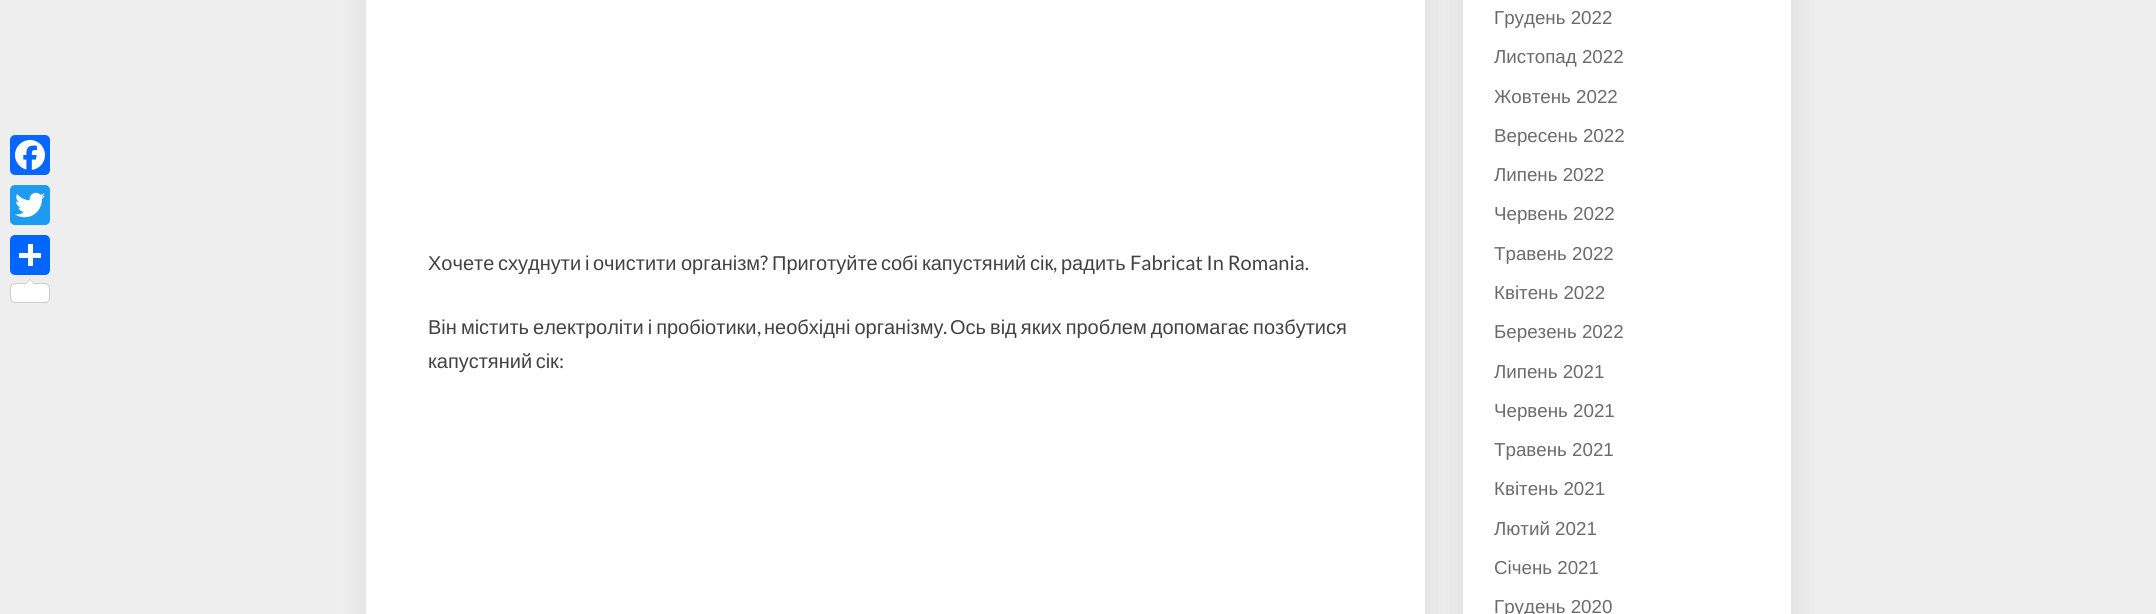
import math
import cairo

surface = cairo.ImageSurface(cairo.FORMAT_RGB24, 2156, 614)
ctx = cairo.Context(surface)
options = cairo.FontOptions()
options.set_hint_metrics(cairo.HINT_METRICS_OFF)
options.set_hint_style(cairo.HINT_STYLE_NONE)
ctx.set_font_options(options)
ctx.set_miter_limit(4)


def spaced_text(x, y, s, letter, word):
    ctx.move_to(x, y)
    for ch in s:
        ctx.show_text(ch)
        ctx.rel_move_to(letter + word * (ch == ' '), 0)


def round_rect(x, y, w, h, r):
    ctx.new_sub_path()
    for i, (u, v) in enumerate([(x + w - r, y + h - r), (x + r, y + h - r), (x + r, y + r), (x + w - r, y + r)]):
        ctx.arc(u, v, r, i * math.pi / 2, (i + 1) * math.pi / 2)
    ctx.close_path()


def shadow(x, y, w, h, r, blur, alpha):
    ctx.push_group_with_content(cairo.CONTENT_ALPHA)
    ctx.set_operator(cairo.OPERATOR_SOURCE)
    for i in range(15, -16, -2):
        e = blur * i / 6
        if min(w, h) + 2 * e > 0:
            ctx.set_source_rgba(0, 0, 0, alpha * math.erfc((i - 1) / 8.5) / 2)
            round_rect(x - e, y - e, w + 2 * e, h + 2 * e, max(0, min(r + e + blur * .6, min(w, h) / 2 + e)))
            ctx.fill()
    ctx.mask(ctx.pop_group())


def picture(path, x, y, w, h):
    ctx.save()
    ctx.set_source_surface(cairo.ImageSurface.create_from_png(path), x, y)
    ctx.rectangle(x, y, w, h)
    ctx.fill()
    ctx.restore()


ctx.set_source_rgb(0.933, 0.933, 0.933)
ctx.paint()
ctx.set_source_rgb(0.031, 0.4, 1)
round_rect(10, 135, 40, 40, 5)
ctx.fill()
picture("img1.png", 15, 140, 30, 30)
ctx.set_source_rgb(0.114, 0.608, 0.941)
round_rect(10, 185, 40, 40, 5)
ctx.fill()
picture("img2.png", 15, 192, 30, 26)
ctx.set_source_rgb(0.004, 0.4, 1)
round_rect(10, 235, 40, 40, 5)
ctx.fill()
ctx.set_source_rgb(1, 1, 1)
ctx.rectangle(28, 244, 5, 22)
ctx.fill()
ctx.rectangle(19, 253, 22, 5)
ctx.fill()
round_rect(10.5, 283.5, 39, 19, 4.5)
ctx.fill_preserve()
ctx.set_source_rgb(0.8, 0.8, 0.8)
ctx.set_line_width(1)
ctx.stroke()
ctx.new_path()
ctx.move_to(35, 284)
ctx.line_to(25, 284)
ctx.line_to(30, 279)
ctx.close_path()
ctx.fill()
ctx.set_source_rgb(1, 1, 1)
ctx.new_path()
ctx.move_to(35, 285)
ctx.line_to(25, 285)
ctx.line_to(30, 280)
ctx.close_path()
ctx.fill()
ctx.set_source_rgb(0, 0, 0)
shadow(366, -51, 1059, 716, 4, 15.5, 0.08)
ctx.set_source_rgb(1, 1, 1)
ctx.rectangle(366, 0, 1059, 614)
ctx.fill()
ctx.select_font_face("Liberation Sans")
ctx.set_font_size(20)
ctx.set_source_rgb(0.259, 0.259, 0.259)
ctx.move_to(428, 270)
ctx.show_text("Хочете")
ctx.move_to(498, 270)
ctx.show_text("схуднути")
ctx.move_to(585, 270)
ctx.show_text("і")
ctx.move_to(593, 270)
ctx.show_text("очистити")
ctx.move_to(681, 270)
ctx.show_text("організм")
ctx.select_font_face("Lato")
ctx.move_to(760, 270)
ctx.show_text("?")
ctx.select_font_face("Liberation Sans")
ctx.move_to(772, 270)
ctx.show_text("Приготуйте")
ctx.move_to(881, 270)
ctx.show_text("собі")
ctx.move_to(922, 270)
ctx.show_text("капустяний")
ctx.move_to(1030, 270)
ctx.show_text("сік")
ctx.select_font_face("Lato")
ctx.move_to(1053, 270)
ctx.show_text(",")
ctx.select_font_face("Liberation Sans")
ctx.move_to(1061, 270)
ctx.show_text("радить")
ctx.select_font_face("Lato")
ctx.move_to(1130, 270)
ctx.show_text("Fabricat In Romania.")
ctx.select_font_face("Liberation Sans")
spaced_text(428, 334, "Він містить електроліти і пробіотики", 0, -1.5)
ctx.select_font_face("Lato")
ctx.move_to(757, 334)
ctx.show_text(",")
ctx.select_font_face("Liberation Sans")
spaced_text(764, 334, "необхідні організму", 0, -1.5)
ctx.select_font_face("Lato")
ctx.move_to(943, 334)
ctx.show_text(".")
ctx.select_font_face("Liberation Sans")
spaced_text(950, 334, "Ось від яких проблем допомагає позбутися", 0, -1.5)
spaced_text(428, 368, "капустяний сік", 0, -2)
ctx.select_font_face("Lato")
ctx.move_to(559, 368)
ctx.show_text(":")
ctx.set_source_rgb(0, 0, 0)
shadow(1463, -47, 328, 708, 0, 15.5, 0.08)
ctx.set_source_rgb(1, 1, 1)
ctx.rectangle(1463, 0, 328, 614)
ctx.fill()
ctx.select_font_face("Liberation Sans")
ctx.set_font_size(18.75)
ctx.set_source_rgb(0.42, 0.42, 0.42)
ctx.move_to(1494, 24)
ctx.show_text("Грудень 2022")
ctx.move_to(1494, 63)
ctx.show_text("Листопад 2022")
ctx.move_to(1494, 103)
ctx.show_text("Жовтень 2022")
ctx.move_to(1494, 142)
ctx.show_text("Вересень 2022")
ctx.move_to(1494, 181)
ctx.show_text("Липень 2022")
ctx.move_to(1494, 220)
ctx.show_text("Червень 2022")
ctx.move_to(1494, 260)
ctx.show_text("Травень 2022")
ctx.move_to(1494, 299)
ctx.show_text("Квітень 2022")
ctx.move_to(1494, 338)
ctx.show_text("Березень 2022")
ctx.move_to(1494, 378)
ctx.show_text("Липень 2021")
ctx.move_to(1494, 417)
ctx.show_text("Червень 2021")
ctx.move_to(1494, 456)
ctx.show_text("Травень 2021")
ctx.move_to(1494, 495)
ctx.show_text("Квітень 2021")
ctx.move_to(1494, 535)
ctx.show_text("Лютий 2021")
ctx.move_to(1494, 574)
ctx.show_text("Січень 2021")
ctx.move_to(1494, 613)
ctx.show_text("Грудень 2020")
surface.write_to_png("page.png")
